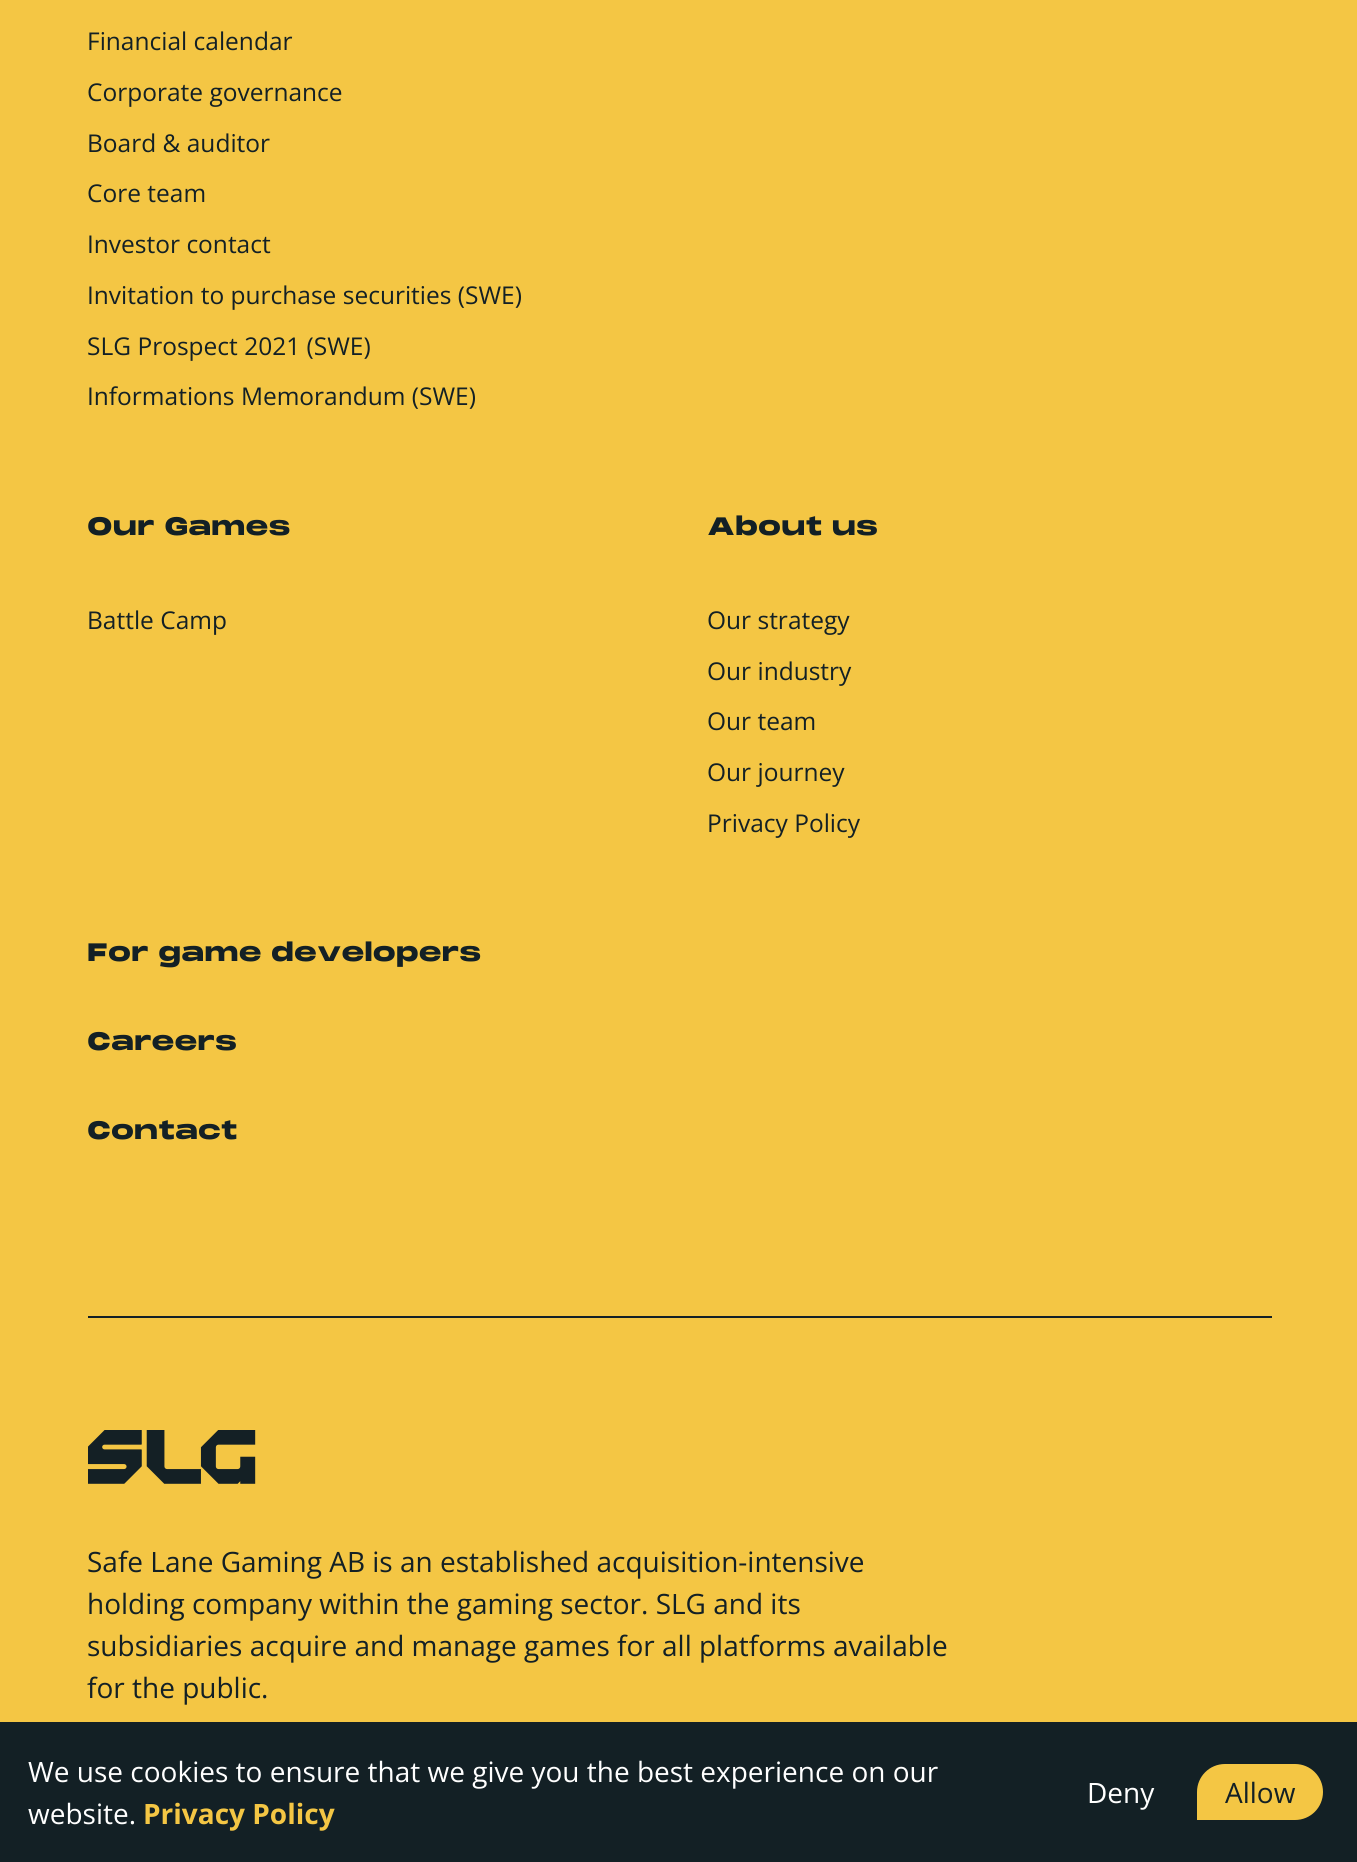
import math
import cairo

surface = cairo.ImageSurface(cairo.FORMAT_RGB24, 1357, 1862)
ctx = cairo.Context(surface)
options = cairo.FontOptions()
options.set_hint_metrics(cairo.HINT_METRICS_OFF)
options.set_hint_style(cairo.HINT_STYLE_NONE)
ctx.set_font_options(options)
ctx.set_miter_limit(4)


def picture(path, x, y, w, h):
    ctx.save()
    ctx.set_source_surface(cairo.ImageSurface.create_from_png(path), x, y)
    ctx.rectangle(x, y, w, h)
    ctx.fill()
    ctx.restore()


ctx.set_source_rgb(0.957, 0.776, 0.267)
ctx.paint()
ctx.select_font_face("Open Sans")
ctx.set_font_size(24.5)
ctx.set_source_rgb(0.078, 0.125, 0.145)
ctx.move_to(87, 50)
ctx.show_text("Financial calendar")
ctx.move_to(87, 101)
ctx.show_text("Corporate governance")
ctx.move_to(87, 152)
ctx.show_text("Board & auditor")
ctx.move_to(87, 202)
ctx.show_text("Core team")
ctx.move_to(87, 253)
ctx.show_text("Investor contact")
ctx.move_to(87, 304)
ctx.show_text("Invitation to purchase securities (SWE)")
ctx.move_to(87, 355)
ctx.show_text("SLG Prospect 2021 (SWE)")
ctx.move_to(87, 405)
ctx.show_text("Informations Memorandum (SWE)")
ctx.select_font_face("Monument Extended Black")
ctx.move_to(87, 535)
ctx.show_text("Our Games")
ctx.select_font_face("Open Sans")
ctx.move_to(87, 629)
ctx.show_text("Battle Camp")
ctx.select_font_face("Monument Extended Black")
ctx.move_to(707, 535)
ctx.show_text("About us")
ctx.select_font_face("Open Sans")
ctx.move_to(707, 629)
ctx.show_text("Our strategy")
ctx.move_to(707, 680)
ctx.show_text("Our industry")
ctx.move_to(707, 730)
ctx.show_text("Our team")
ctx.move_to(707, 781)
ctx.show_text("Our journey")
ctx.move_to(707, 832)
ctx.show_text("Privacy Policy")
ctx.select_font_face("Monument Extended Black")
ctx.move_to(87, 961)
ctx.show_text("For game developers")
ctx.move_to(87, 1050)
ctx.show_text("Careers")
ctx.move_to(87, 1139)
ctx.show_text("Contact")
ctx.rectangle(88, 1316, 1184, 2)
ctx.fill()
picture("img1.png", 88, 1430, 168, 54)
ctx.select_font_face("Open Sans")
ctx.set_font_size(28)
ctx.move_to(87, 1572)
ctx.show_text("Safe Lane Gaming AB is an established acquisition-intensive")
ctx.move_to(87, 1614)
ctx.show_text("holding company within the gaming sector. SLG and its")
ctx.move_to(87, 1656)
ctx.show_text("subsidiaries acquire and manage games for all platforms available")
ctx.move_to(87, 1698)
ctx.show_text("for the public.")
ctx.rectangle(0, 1722, 1357, 140)
ctx.fill()
ctx.set_source_rgb(1, 1, 1)
ctx.move_to(28, 1782)
ctx.show_text("We use cookies to ensure that we give you the best experience on our")
ctx.move_to(28, 1824)
ctx.show_text("website.")
ctx.select_font_face("Open Sans", cairo.FONT_SLANT_NORMAL, cairo.FONT_WEIGHT_BOLD)
ctx.set_source_rgb(0.957, 0.776, 0.267)
ctx.move_to(143, 1824)
ctx.show_text("Privacy Policy")
ctx.select_font_face("Open Sans")
ctx.set_source_rgb(1, 1, 1)
ctx.move_to(1087, 1803)
ctx.show_text("Deny")
ctx.set_source_rgb(0.957, 0.776, 0.267)
ctx.new_path()
ctx.move_to(1225, 1764)
ctx.line_to(1295, 1764)
ctx.curve_to(1310.5, 1764, 1323, 1776.5, 1323, 1792)
ctx.curve_to(1323, 1807.5, 1310.5, 1820, 1295, 1820)
ctx.line_to(1197, 1820)
ctx.line_to(1197, 1792)
ctx.curve_to(1197, 1776.5, 1209.5, 1764, 1225, 1764)
ctx.close_path()
ctx.fill()
ctx.set_source_rgb(0.078, 0.125, 0.145)
ctx.move_to(1225, 1803)
ctx.show_text("Allow")
surface.write_to_png("page.png")
